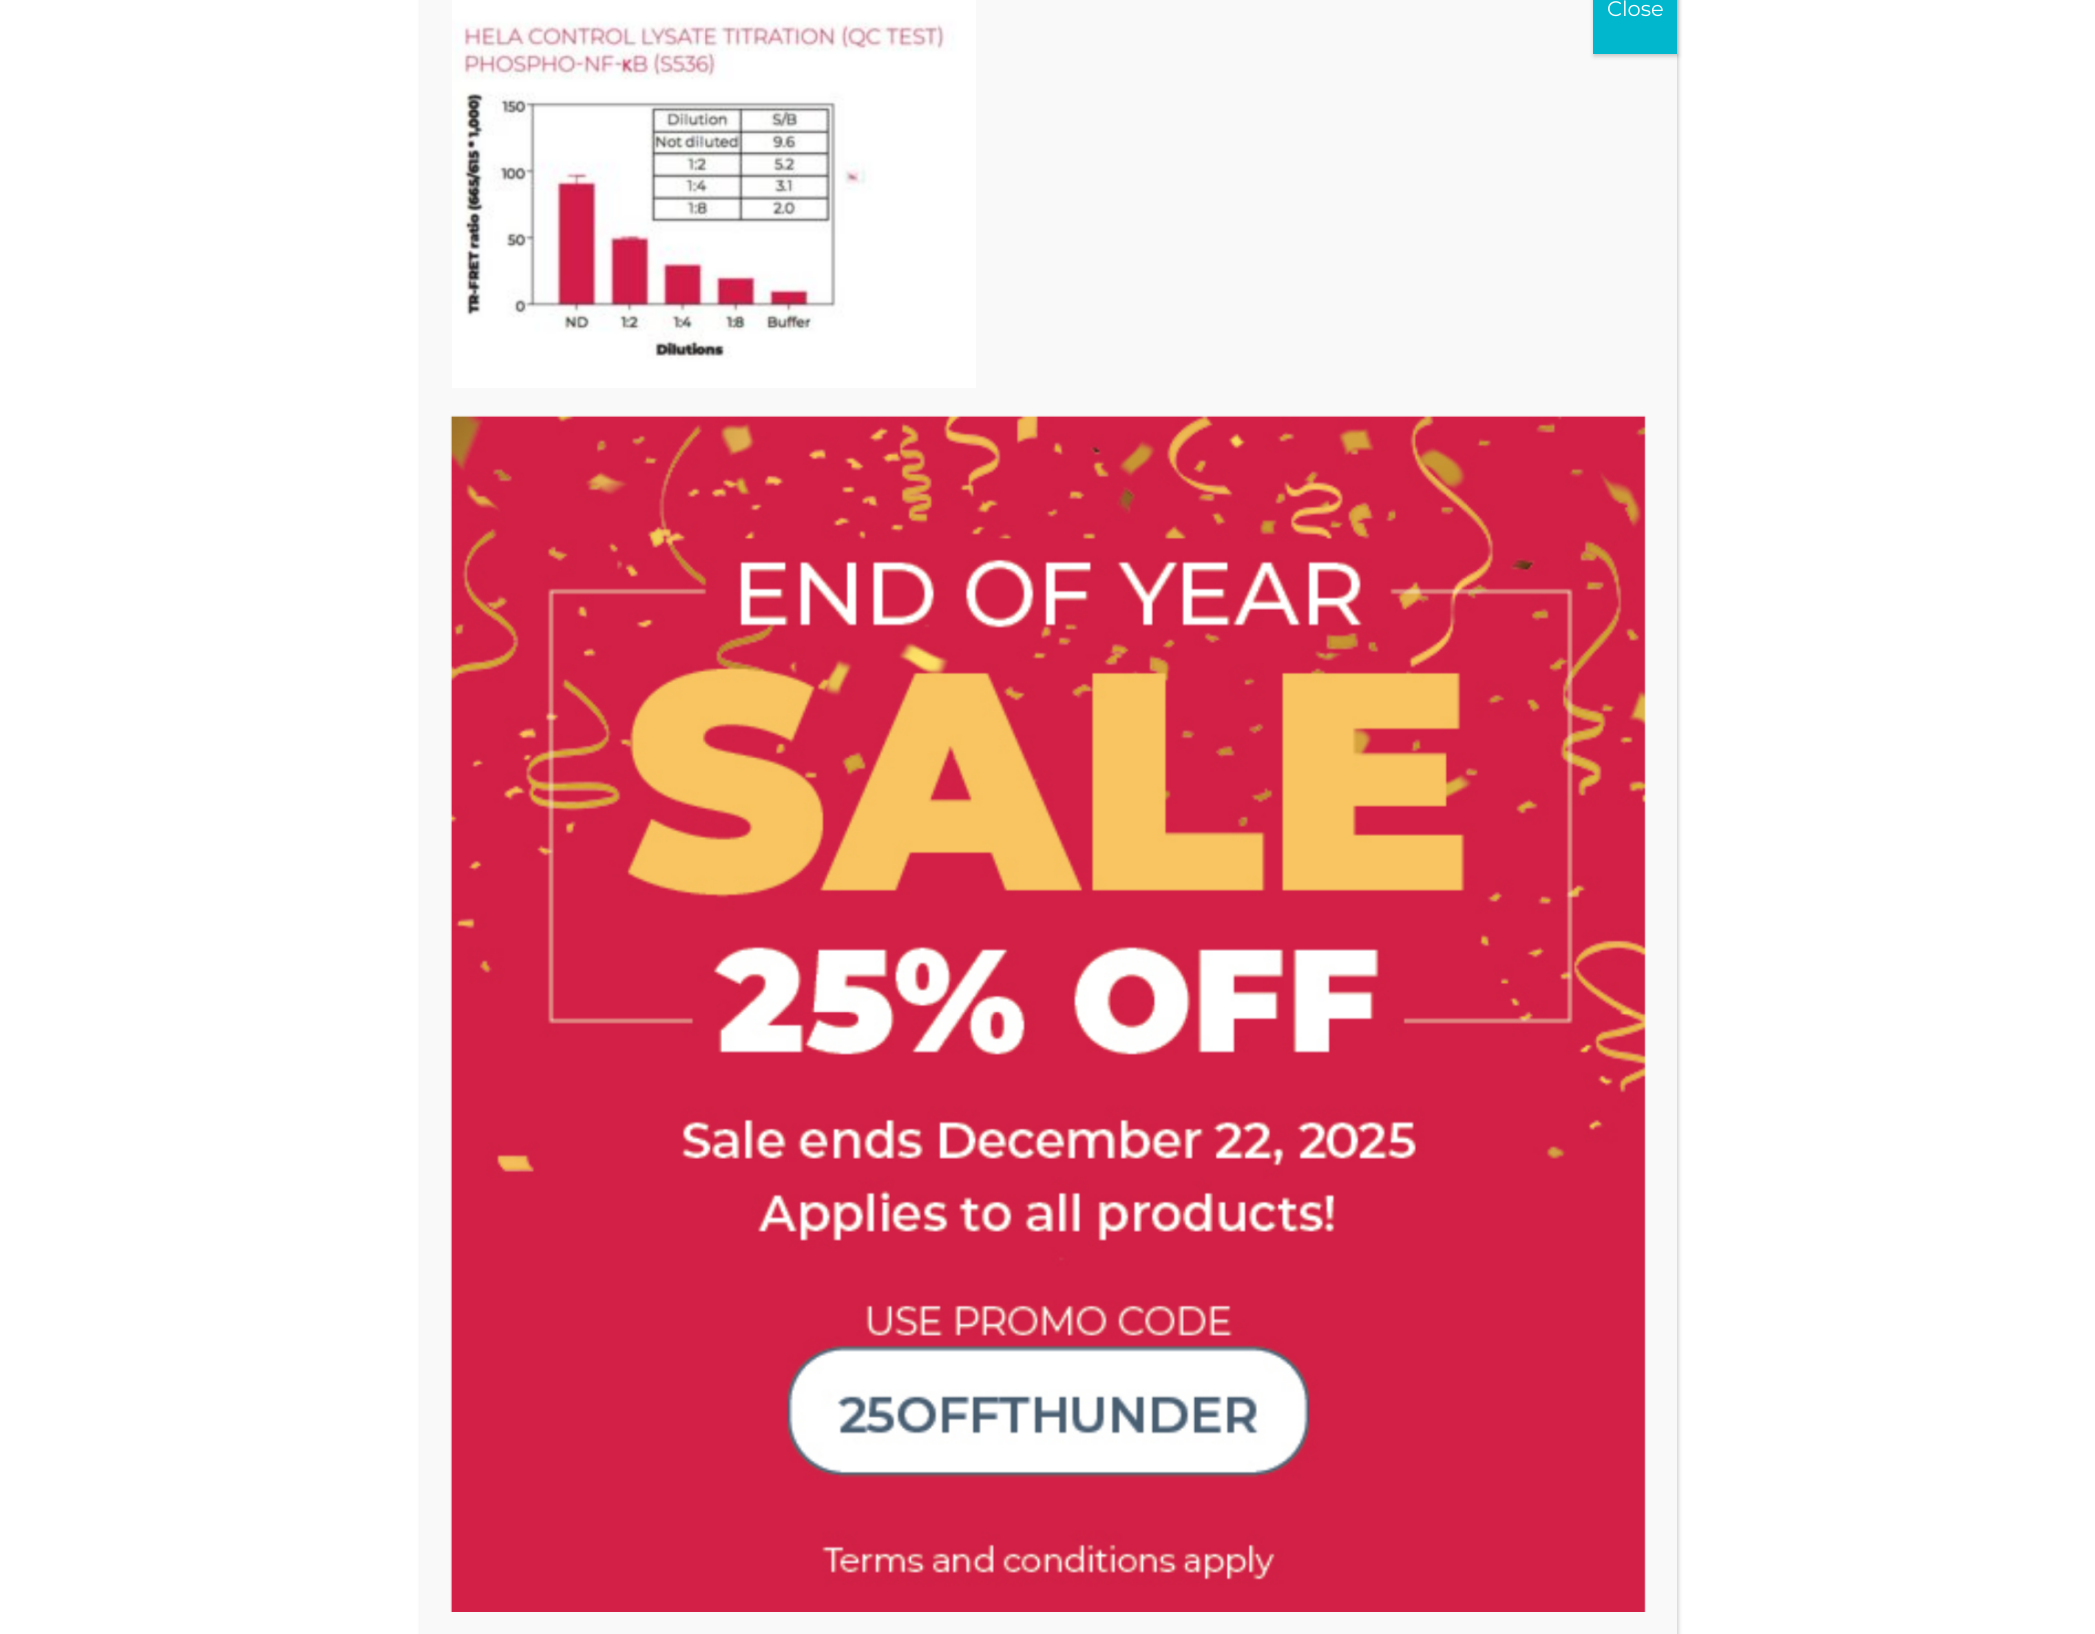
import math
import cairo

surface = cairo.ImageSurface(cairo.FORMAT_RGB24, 2095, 1634)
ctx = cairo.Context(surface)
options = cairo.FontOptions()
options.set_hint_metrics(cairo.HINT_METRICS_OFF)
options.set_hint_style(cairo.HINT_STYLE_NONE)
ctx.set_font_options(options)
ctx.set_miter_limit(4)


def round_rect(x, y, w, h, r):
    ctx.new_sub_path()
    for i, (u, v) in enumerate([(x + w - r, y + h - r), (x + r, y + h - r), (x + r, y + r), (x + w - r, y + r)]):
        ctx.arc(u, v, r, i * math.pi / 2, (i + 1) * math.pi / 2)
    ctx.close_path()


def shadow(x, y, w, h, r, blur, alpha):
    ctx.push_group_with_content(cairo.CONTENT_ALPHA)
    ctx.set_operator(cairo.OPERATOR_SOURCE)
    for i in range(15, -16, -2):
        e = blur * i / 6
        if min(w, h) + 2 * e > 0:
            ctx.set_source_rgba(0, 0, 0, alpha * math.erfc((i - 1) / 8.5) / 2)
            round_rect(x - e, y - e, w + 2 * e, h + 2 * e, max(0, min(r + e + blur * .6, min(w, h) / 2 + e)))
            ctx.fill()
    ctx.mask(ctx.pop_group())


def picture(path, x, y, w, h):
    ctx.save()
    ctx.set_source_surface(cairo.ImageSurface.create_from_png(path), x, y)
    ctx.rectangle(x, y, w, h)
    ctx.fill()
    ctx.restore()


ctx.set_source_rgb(1, 1, 1)
ctx.paint()
ctx.set_source_rgb(0.008, 0.008, 0.008)
shadow(422, -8, 1256, 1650, 0, 2.5, 0.23)
ctx.set_source_rgb(0.976, 0.976, 0.976)
ctx.rectangle(420, 0, 1257, 1634)
ctx.fill()
picture("img1.png", 452, 0, 524, 388)
picture("img2.png", 450, 415, 1196, 1197)
ctx.set_source_rgb(0.008, 0.008, 0.008)
shadow(1594, -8, 84, 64, 0, 2.5, 0.23)
ctx.set_source_rgb(0, 0.718, 0.804)
ctx.rectangle(1593, 0, 84, 54)
ctx.fill()
ctx.select_font_face("Montserrat")
ctx.set_font_size(21)
ctx.set_source_rgb(1, 1, 1)
ctx.move_to(1607, 16)
ctx.show_text("Close")
surface.write_to_png("page.png")
